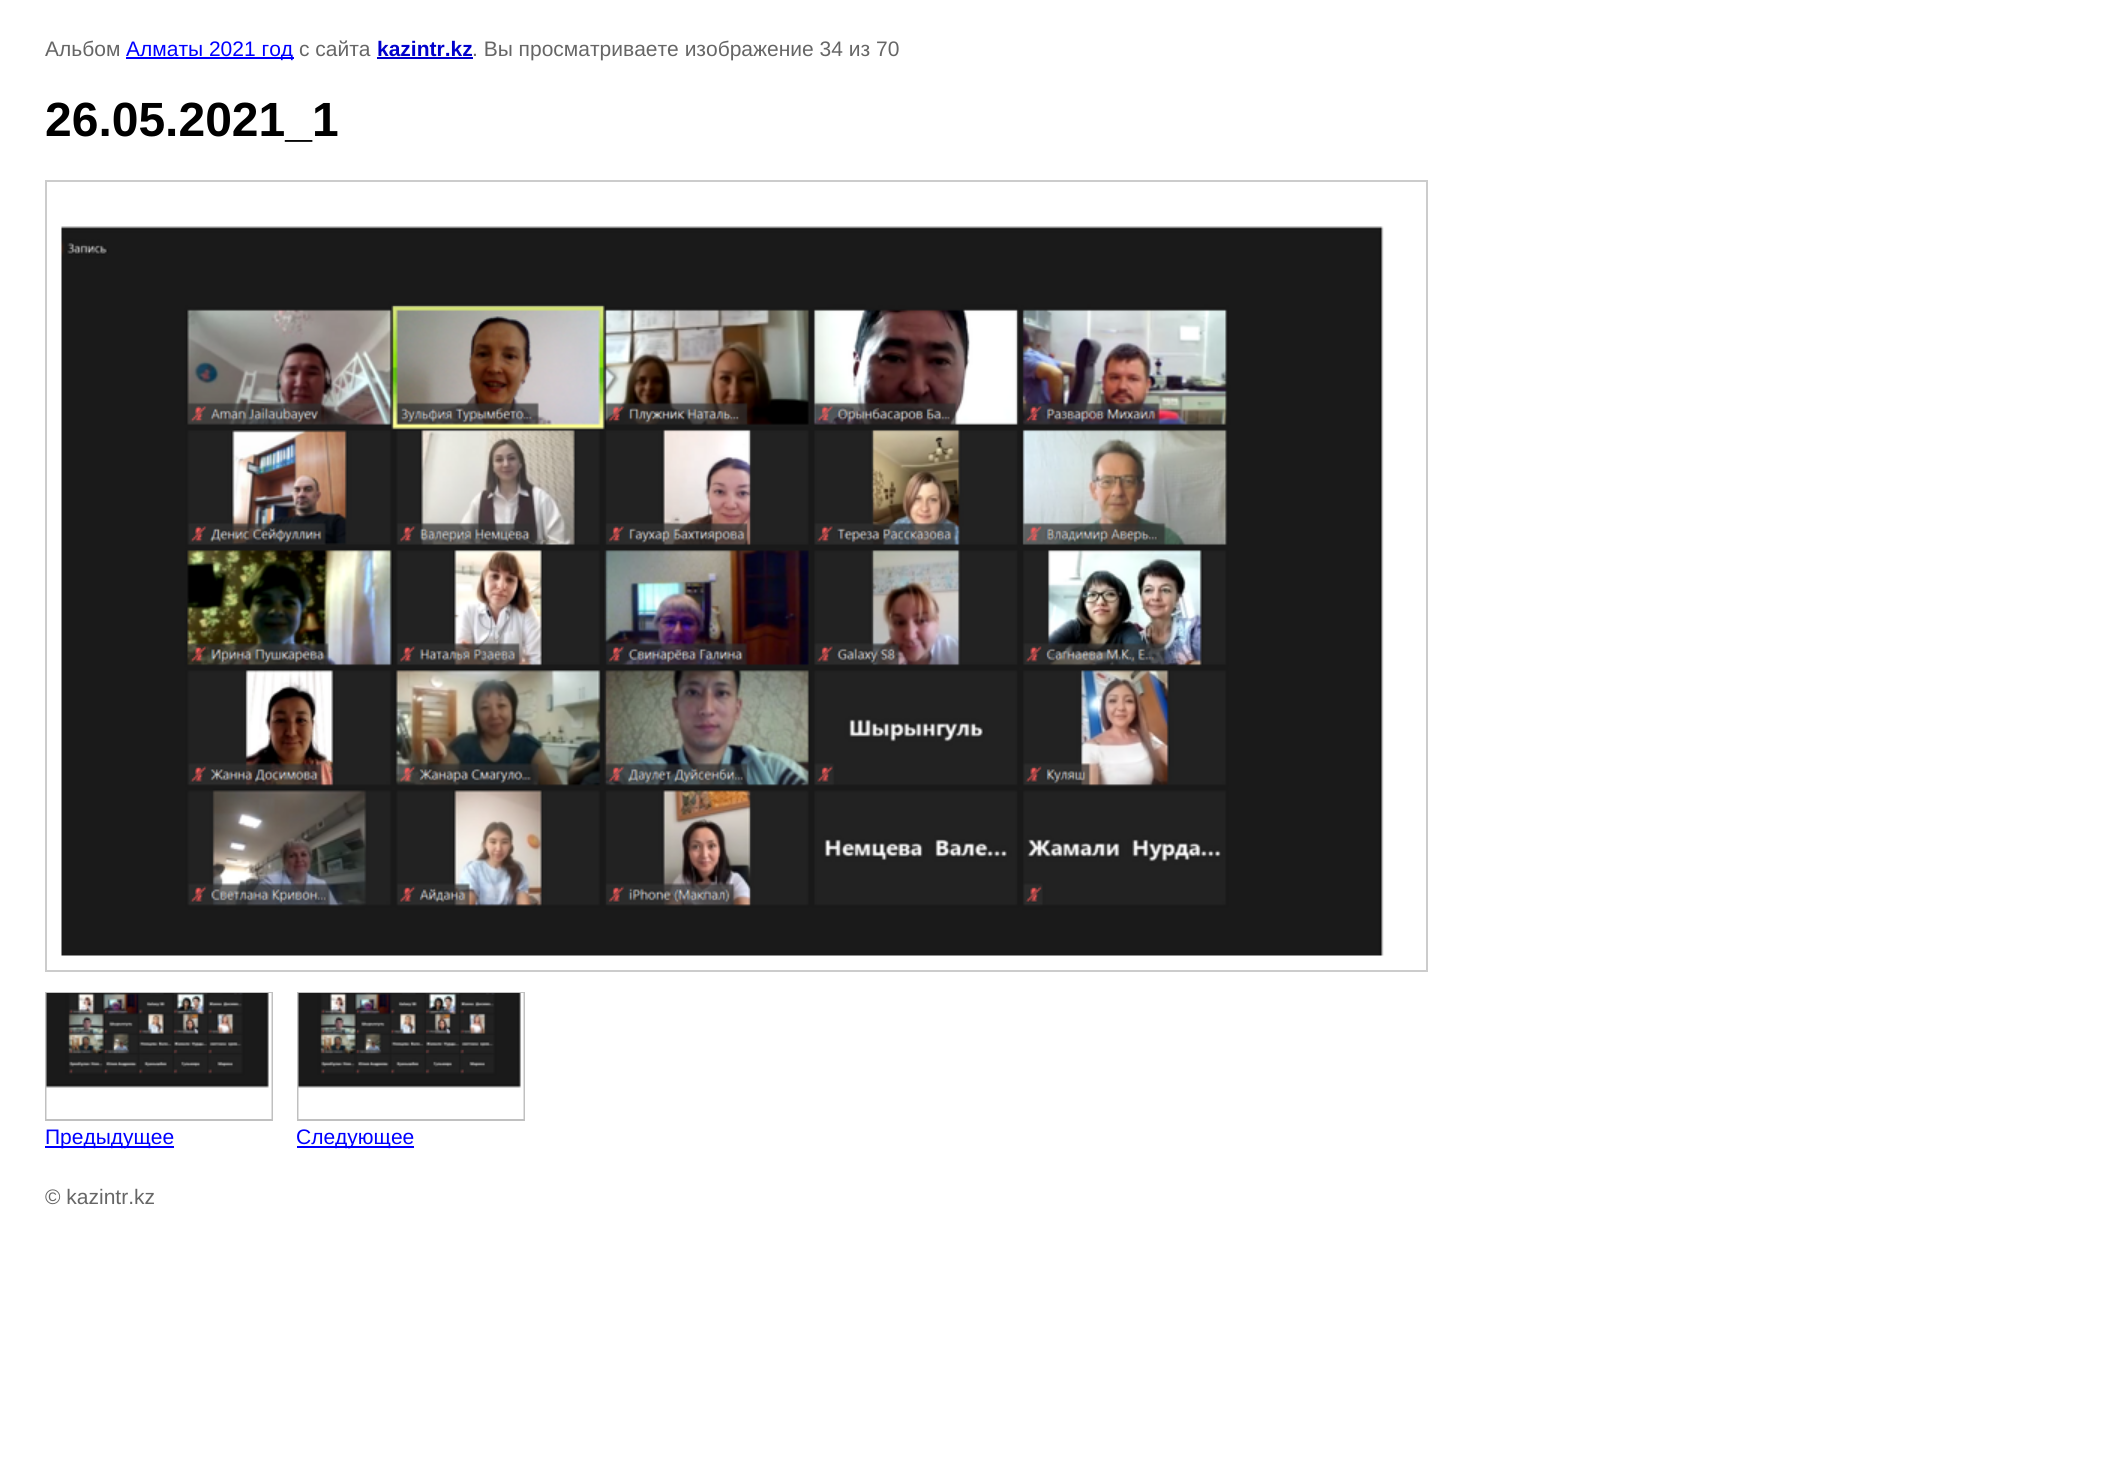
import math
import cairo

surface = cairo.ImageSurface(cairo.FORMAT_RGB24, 2119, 1472)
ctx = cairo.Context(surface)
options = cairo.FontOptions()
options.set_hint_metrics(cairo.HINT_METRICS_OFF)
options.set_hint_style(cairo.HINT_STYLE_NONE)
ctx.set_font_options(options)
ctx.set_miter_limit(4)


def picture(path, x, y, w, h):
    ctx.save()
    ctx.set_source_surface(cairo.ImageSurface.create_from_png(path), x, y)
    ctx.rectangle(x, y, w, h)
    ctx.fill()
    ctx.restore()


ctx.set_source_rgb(1, 1, 1)
ctx.paint()
ctx.select_font_face("Liberation Sans")
ctx.set_font_size(21)
ctx.set_source_rgb(0.4, 0.4, 0.4)
ctx.move_to(45, 56)
ctx.show_text("Альбом")
ctx.set_source_rgb(0, 0, 1)
ctx.rectangle(126, 57, 168, 2)
ctx.fill()
ctx.move_to(126, 56)
ctx.show_text("Алматы 2021 год")
ctx.set_source_rgb(0.4, 0.4, 0.4)
ctx.move_to(299, 56)
ctx.show_text("с сайта")
ctx.select_font_face("Liberation Sans", cairo.FONT_SLANT_NORMAL, cairo.FONT_WEIGHT_BOLD)
ctx.set_source_rgb(0, 0, 0.8)
ctx.move_to(377, 56)
ctx.show_text("kazintr.kz")
ctx.rectangle(377, 57, 96, 2)
ctx.fill()
ctx.select_font_face("Liberation Sans")
ctx.set_source_rgb(0.4, 0.4, 0.4)
ctx.move_to(472, 56)
ctx.show_text(". Вы просматриваете изображение 34 из 70")
ctx.select_font_face("Liberation Sans", cairo.FONT_SLANT_NORMAL, cairo.FONT_WEIGHT_BOLD)
ctx.set_font_size(48)
ctx.set_source_rgb(0, 0, 0)
ctx.move_to(45, 136)
ctx.show_text("26.05.2021_1")
ctx.rectangle(46, 181, 1381, 790)
ctx.set_source_rgb(0.8, 0.8, 0.8)
ctx.stroke()
picture("img1.png", 61, 226, 1323, 730)
ctx.rectangle(46, 993, 226, 127)
ctx.set_source_rgb(0.753, 0.753, 0.753)
ctx.stroke()
picture("img2.png", 46, 993, 226, 126)
ctx.set_source_rgb(0, 0, 1)
ctx.rectangle(45, 1146, 129, 2)
ctx.fill()
ctx.select_font_face("Liberation Sans")
ctx.set_font_size(21)
ctx.move_to(45, 1144)
ctx.show_text("Предыдущее")
ctx.rectangle(298, 993, 226, 127)
ctx.set_source_rgb(0.753, 0.753, 0.753)
ctx.stroke()
picture("img3.png", 298, 993, 226, 126)
ctx.set_source_rgb(0, 0, 1)
ctx.rectangle(297, 1146, 117, 2)
ctx.fill()
ctx.move_to(296, 1144)
ctx.show_text("Следующее")
ctx.set_source_rgb(0.4, 0.4, 0.4)
ctx.move_to(45, 1204)
ctx.show_text("© kazintr.kz")
surface.write_to_png("page.png")
